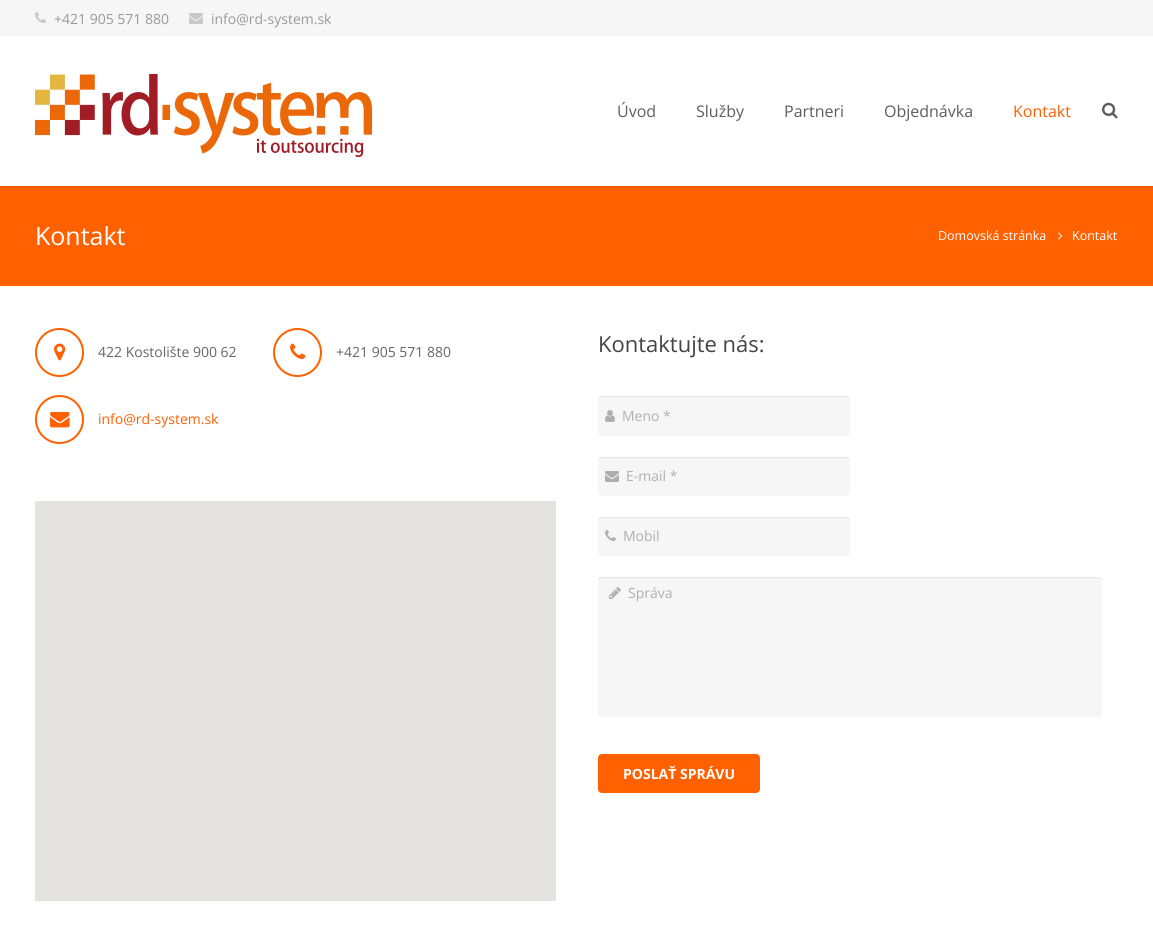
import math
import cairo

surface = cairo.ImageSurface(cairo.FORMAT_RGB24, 1153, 925)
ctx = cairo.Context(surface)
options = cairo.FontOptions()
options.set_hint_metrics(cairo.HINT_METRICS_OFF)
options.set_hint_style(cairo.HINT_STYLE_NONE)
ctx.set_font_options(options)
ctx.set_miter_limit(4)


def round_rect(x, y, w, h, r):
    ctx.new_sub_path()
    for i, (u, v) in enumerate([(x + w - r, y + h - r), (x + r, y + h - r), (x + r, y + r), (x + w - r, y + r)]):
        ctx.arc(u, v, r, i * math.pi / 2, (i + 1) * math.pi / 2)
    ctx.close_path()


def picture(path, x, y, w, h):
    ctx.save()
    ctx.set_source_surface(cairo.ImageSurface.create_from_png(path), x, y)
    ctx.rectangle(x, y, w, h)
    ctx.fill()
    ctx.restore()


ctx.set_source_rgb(1, 1, 1)
ctx.paint()
ctx.set_source_rgb(0.961, 0.961, 0.961)
ctx.rectangle(0, 0, 1153, 36)
ctx.fill()
picture("img1.png", 35, 12, 11, 11)
ctx.select_font_face("Open Sans")
ctx.set_font_size(14)
ctx.set_source_rgb(0.6, 0.6, 0.6)
ctx.move_to(54, 24)
ctx.show_text("+421 905 571 880")
picture("img2.png", 189, 13, 14, 11)
ctx.move_to(211, 24)
ctx.show_text("info@rd-system.sk")
ctx.set_source_rgb(0.922, 0.345, 0)
ctx.rectangle(0, 186, 1153, 1)
ctx.fill()
picture("img3.png", 35, 74, 337, 83)
ctx.set_font_size(16)
ctx.set_source_rgb(0.365, 0.365, 0.365)
ctx.move_to(617, 117)
ctx.show_text("Úvod")
ctx.move_to(696, 117)
ctx.show_text("Služby")
ctx.move_to(784, 117)
ctx.show_text("Partneri")
ctx.move_to(884, 117)
ctx.show_text("Objednávka")
ctx.set_source_rgb(1, 0.376, 0)
ctx.move_to(1013, 117)
ctx.show_text("Kontakt")
picture("img4.png", 1102, 102, 16, 17)
ctx.rectangle(0, 187, 1153, 99)
ctx.fill()
ctx.set_font_size(25)
ctx.set_source_rgb(1, 1, 1)
ctx.move_to(35, 245)
ctx.show_text("Kontakt")
ctx.set_font_size(12.5)
ctx.move_to(938, 240)
ctx.show_text("Domovská stránka")
picture("img5.png", 1058, 232, 5, 8)
ctx.move_to(1072, 240)
ctx.show_text("Kontakt")
ctx.new_path()
ctx.arc(59.5, 352.5, 23.5, 0, 2 * math.pi)
ctx.set_source_rgb(1, 0.376, 0)
ctx.stroke()
picture("img6.png", 54, 343, 12, 18)
ctx.set_font_size(14)
ctx.set_source_rgb(0.4, 0.4, 0.4)
ctx.move_to(98, 357)
ctx.show_text("422 Kostolište 900 62")
ctx.new_path()
ctx.arc(297.5, 352.5, 23.5, 0, 2 * math.pi)
ctx.set_source_rgb(1, 0.376, 0)
ctx.stroke()
picture("img7.png", 290, 343, 16, 16)
ctx.set_source_rgb(0.4, 0.4, 0.4)
ctx.move_to(336, 357)
ctx.show_text("+421 905 571 880")
ctx.new_path()
ctx.arc(59.5, 419.5, 23.5, 0, 2 * math.pi)
ctx.set_source_rgb(1, 0.376, 0)
ctx.stroke()
picture("img8.png", 50, 412, 20, 16)
ctx.move_to(98, 424)
ctx.show_text("info@rd-system.sk")
ctx.set_source_rgb(0.898, 0.89, 0.875)
ctx.rectangle(35, 501, 521, 400)
ctx.fill()
ctx.set_font_size(22)
ctx.set_source_rgb(0.267, 0.267, 0.267)
ctx.move_to(598, 352)
ctx.show_text("Kontaktujte nás:")
ctx.set_source_rgb(0.961, 0.961, 0.961)
round_rect(598, 396, 252, 40, 4)
ctx.fill()
ctx.set_source_rgba(0, 0, 0, 0.08)
ctx.new_path()
ctx.move_to(602, 397)
ctx.line_to(846, 397)
ctx.curve_to(848, 397, 850, 399, 850, 401)
ctx.line_to(850, 400)
ctx.curve_to(850, 398, 848, 396, 846, 396)
ctx.line_to(602, 396)
ctx.curve_to(600, 396, 598, 398, 598, 400)
ctx.line_to(598, 401)
ctx.curve_to(598, 399, 600, 397, 602, 397)
ctx.close_path()
ctx.fill()
picture("img9.png", 605, 410, 10, 12)
ctx.set_font_size(14)
ctx.set_source_rgb(0.682, 0.682, 0.682)
ctx.move_to(622, 421)
ctx.show_text("Meno *")
ctx.set_source_rgb(0.961, 0.961, 0.961)
round_rect(598, 457, 252, 39, 4)
ctx.fill()
ctx.set_source_rgba(0, 0, 0, 0.08)
ctx.new_path()
ctx.move_to(602, 458)
ctx.line_to(846, 458)
ctx.curve_to(848, 458, 850, 460, 850, 462)
ctx.line_to(850, 461)
ctx.curve_to(850, 459, 848, 457, 846, 457)
ctx.line_to(602, 457)
ctx.curve_to(600, 457, 598, 459, 598, 461)
ctx.line_to(598, 462)
ctx.curve_to(598, 460, 600, 458, 602, 458)
ctx.close_path()
ctx.fill()
picture("img10.png", 605, 471, 14, 11)
ctx.set_source_rgb(0.682, 0.682, 0.682)
ctx.move_to(626, 481)
ctx.show_text("E-mail *")
ctx.set_source_rgb(0.961, 0.961, 0.961)
round_rect(598, 517, 252, 39, 4)
ctx.fill()
ctx.set_source_rgba(0, 0, 0, 0.08)
ctx.new_path()
ctx.move_to(602, 518)
ctx.line_to(846, 518)
ctx.curve_to(848, 518, 850, 520, 850, 522)
ctx.line_to(850, 521)
ctx.curve_to(850, 519, 848, 517, 846, 517)
ctx.line_to(602, 517)
ctx.curve_to(600, 517, 598, 519, 598, 521)
ctx.line_to(598, 522)
ctx.curve_to(598, 520, 600, 518, 602, 518)
ctx.close_path()
ctx.fill()
picture("img11.png", 605, 530, 11, 11)
ctx.set_source_rgb(0.682, 0.682, 0.682)
ctx.move_to(623, 541)
ctx.show_text("Mobil")
ctx.set_source_rgb(0.961, 0.961, 0.961)
round_rect(598, 577, 504, 140, 4)
ctx.fill()
ctx.set_source_rgba(0, 0, 0, 0.08)
ctx.new_path()
ctx.move_to(602, 578)
ctx.line_to(1098, 578)
ctx.curve_to(1100, 578, 1102, 580, 1102, 582)
ctx.curve_to(1102, 579, 1101, 577, 1098, 577)
ctx.line_to(602, 577)
ctx.curve_to(599, 577, 598, 579, 598, 582)
ctx.curve_to(598, 580, 600, 578, 602, 578)
ctx.close_path()
ctx.fill()
picture("img12.png", 609, 587, 12, 12)
ctx.set_source_rgb(0.682, 0.682, 0.682)
ctx.move_to(628, 598)
ctx.show_text("Správa")
ctx.set_source_rgb(1, 0.376, 0)
round_rect(598, 754, 162, 39, 4)
ctx.fill()
ctx.select_font_face("Open Sans", cairo.FONT_SLANT_NORMAL, cairo.FONT_WEIGHT_BOLD)
ctx.set_source_rgb(1, 1, 1)
ctx.move_to(623, 779)
ctx.show_text("POSLAŤ SPRÁVU")
surface.write_to_png("page.png")
